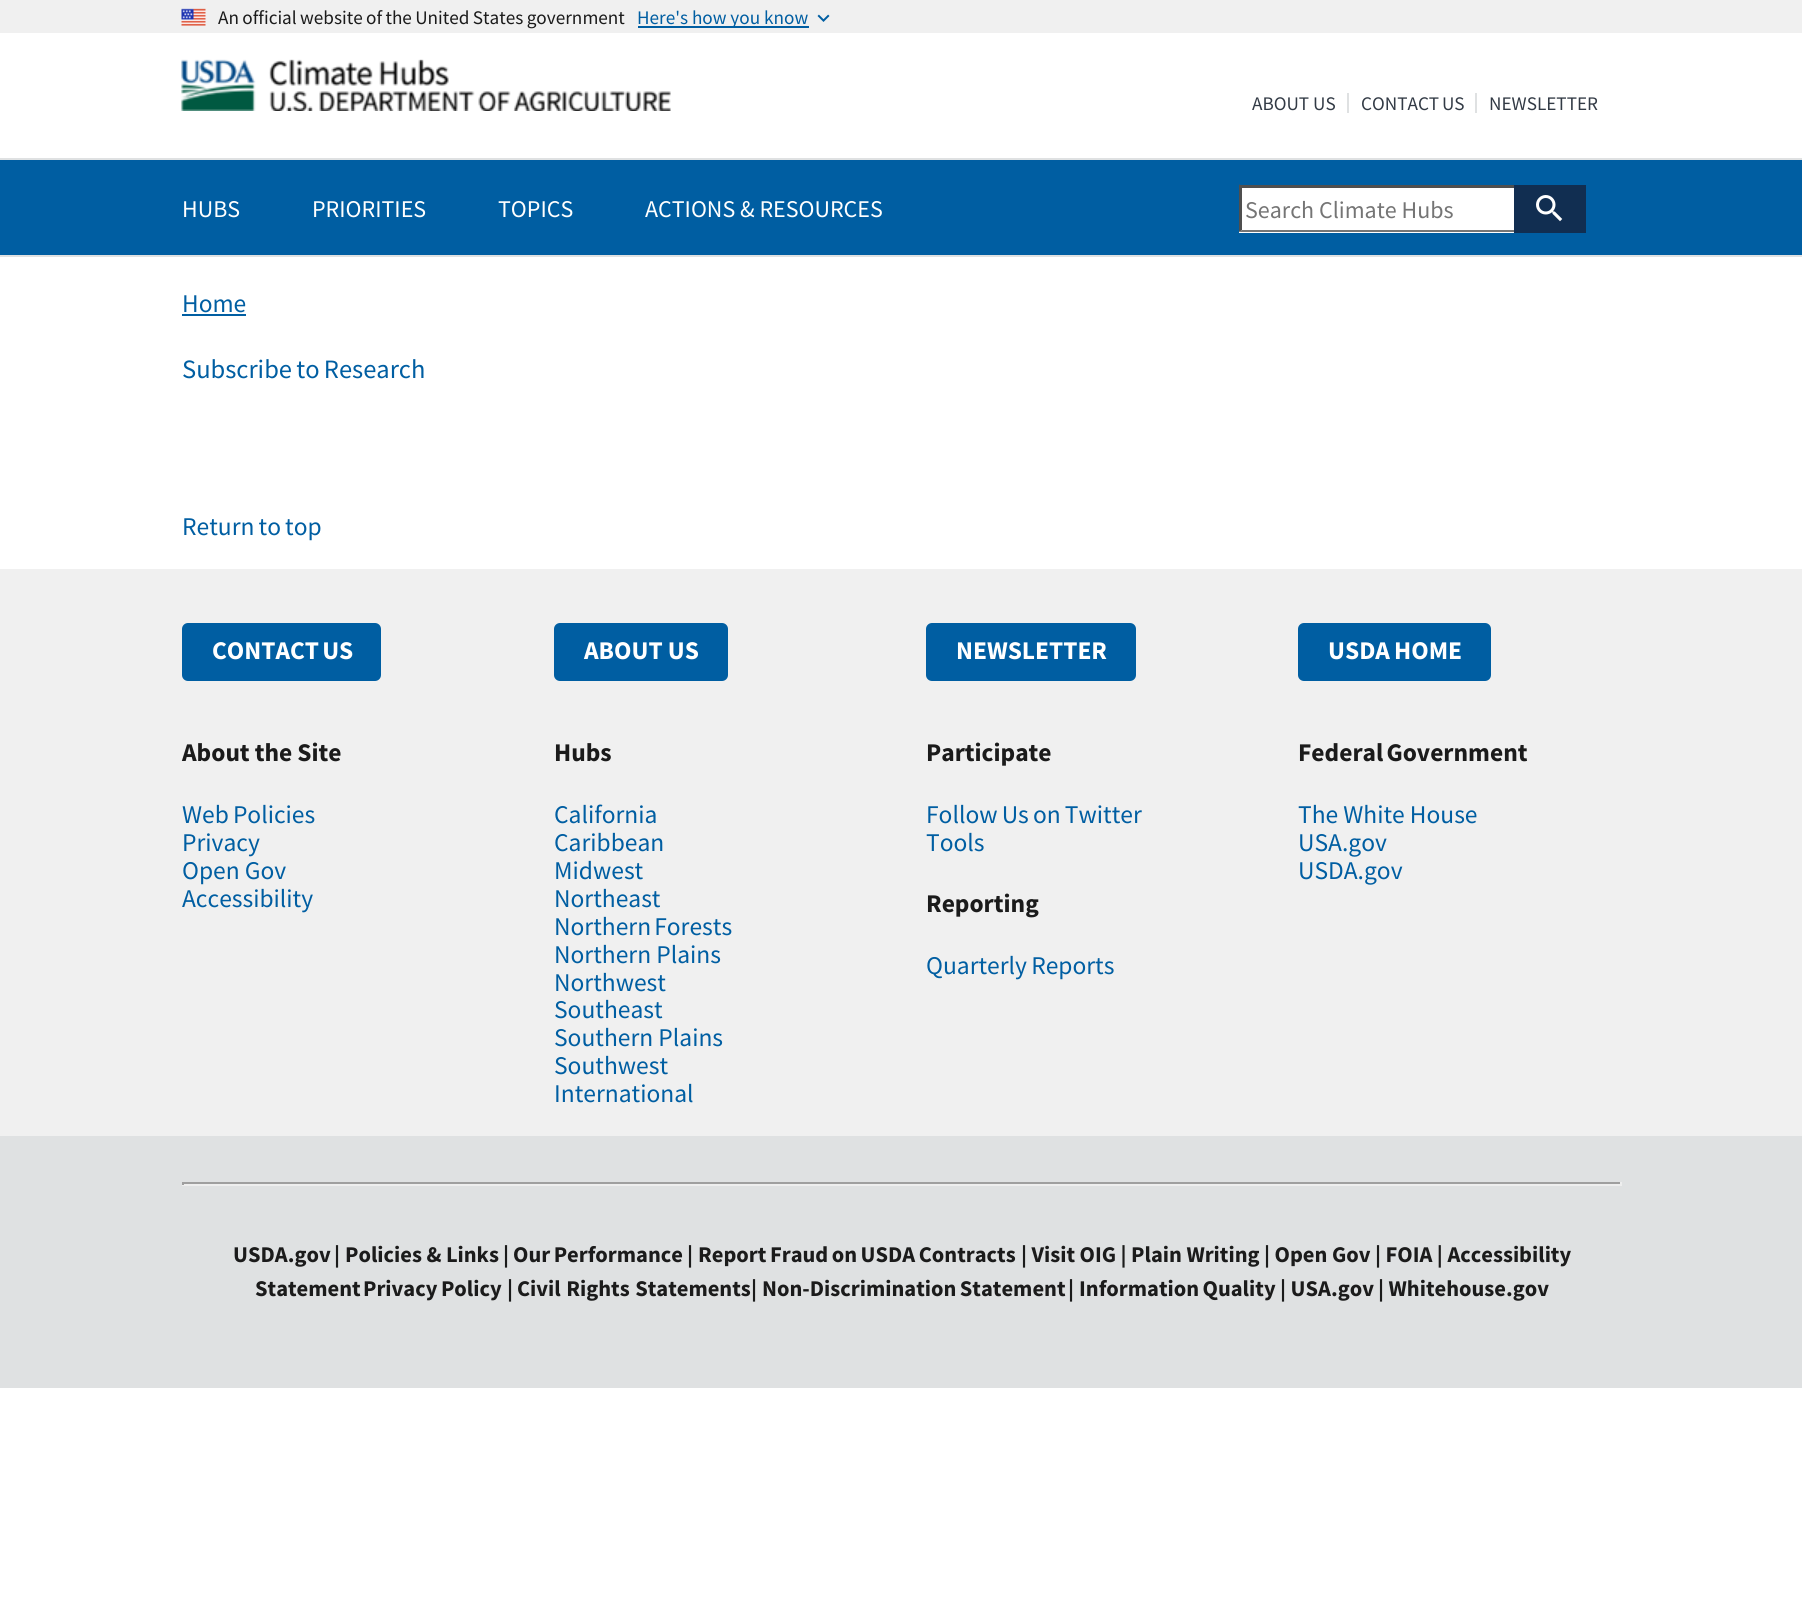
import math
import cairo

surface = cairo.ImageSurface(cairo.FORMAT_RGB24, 1802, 1601)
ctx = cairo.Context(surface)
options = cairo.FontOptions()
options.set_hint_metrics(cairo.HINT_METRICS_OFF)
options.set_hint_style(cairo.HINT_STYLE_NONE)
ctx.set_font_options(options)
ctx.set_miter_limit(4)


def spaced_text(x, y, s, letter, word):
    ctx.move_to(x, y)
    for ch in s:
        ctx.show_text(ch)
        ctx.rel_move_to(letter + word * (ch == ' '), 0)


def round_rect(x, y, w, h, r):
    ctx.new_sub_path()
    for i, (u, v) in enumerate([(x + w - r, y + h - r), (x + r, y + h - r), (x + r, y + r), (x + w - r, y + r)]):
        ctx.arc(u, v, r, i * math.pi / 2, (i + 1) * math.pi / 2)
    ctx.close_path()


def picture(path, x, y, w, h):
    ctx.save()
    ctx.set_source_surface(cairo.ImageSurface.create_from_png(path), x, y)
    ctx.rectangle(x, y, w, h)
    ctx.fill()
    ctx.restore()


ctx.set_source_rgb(1, 1, 1)
ctx.paint()
ctx.set_source_rgb(0.941, 0.941, 0.941)
ctx.rectangle(0, 0, 1802, 33)
ctx.fill()
picture("img1.png", 181, 8, 25, 18)
ctx.select_font_face("Source Sans Pro")
ctx.set_font_size(19.2)
ctx.set_source_rgb(0.106, 0.106, 0.106)
spaced_text(218, 24, "An official website of the United States government", 0, -0.5)
ctx.set_source_rgb(0, 0.369, 0.635)
ctx.rectangle(638, 26, 171, 2)
ctx.fill()
ctx.move_to(637, 24)
ctx.show_text("Here's how you know")
picture("img2.png", 817, 14, 13, 8)
picture("img3.png", 181, 59, 490, 52)
ctx.rectangle(0, 160, 1802, 95)
ctx.fill()
ctx.set_source_rgb(0.875, 0.882, 0.886)
ctx.rectangle(0, 158, 1802, 2)
ctx.fill()
ctx.set_source_rgb(0.196, 0.227, 0.271)
ctx.move_to(1252, 110)
ctx.show_text("ABOUT US")
ctx.set_source_rgb(0.875, 0.882, 0.886)
ctx.rectangle(1347, 93, 2, 20)
ctx.fill()
ctx.set_source_rgb(0.196, 0.227, 0.271)
spaced_text(1361, 110, "CONTACT US", 0, -1)
ctx.set_source_rgb(0.875, 0.882, 0.886)
ctx.rectangle(1475, 93, 2, 20)
ctx.fill()
ctx.set_source_rgb(0.196, 0.227, 0.271)
ctx.move_to(1489, 110)
ctx.show_text("NEWSLETTER")
ctx.set_font_size(24)
ctx.set_source_rgb(1, 1, 1)
ctx.move_to(182, 217)
ctx.show_text("HUBS")
ctx.move_to(312, 217)
ctx.show_text("PRIORITIES")
ctx.move_to(498, 217)
ctx.show_text("TOPICS")
ctx.move_to(645, 217)
ctx.show_text("ACTIONS & RESOURCES")
ctx.rectangle(1239, 188, 275, 45)
ctx.fill()
ctx.set_source_rgb(0.31, 0.31, 0.31)
ctx.rectangle(1239, 185, 275, 3)
ctx.fill()
ctx.set_source_rgb(0.463, 0.463, 0.463)
ctx.new_path()
ctx.move_to(1514, 232)
ctx.line_to(1239, 232)
ctx.line_to(1242, 230)
ctx.line_to(1514, 230)
ctx.close_path()
ctx.fill()
ctx.set_source_rgb(0.31, 0.31, 0.31)
ctx.new_path()
ctx.move_to(1239, 232)
ctx.line_to(1239, 184)
ctx.line_to(1242, 188)
ctx.line_to(1242, 230)
ctx.close_path()
ctx.fill()
ctx.set_source_rgb(0.459, 0.459, 0.459)
ctx.move_to(1245, 218)
ctx.show_text("Search Climate Hubs")
ctx.set_source_rgb(0.067, 0.18, 0.318)
ctx.rectangle(1514, 185, 72, 48)
ctx.fill()
picture("img4.png", 1536, 195, 27, 27)
ctx.set_source_rgb(0.875, 0.882, 0.886)
ctx.rectangle(0, 255, 1802, 2)
ctx.fill()
ctx.set_font_size(25.5)
ctx.set_source_rgb(0, 0.369, 0.635)
ctx.move_to(182, 312)
ctx.show_text("Home")
ctx.rectangle(182, 314, 64, 2)
ctx.fill()
ctx.set_font_size(26.5)
spaced_text(182, 378, "Subscribe to Research", 0, -1)
ctx.set_font_size(25.5)
spaced_text(182, 535, "Return to top", 0, -1)
ctx.set_source_rgb(0.941, 0.941, 0.941)
ctx.rectangle(0, 569, 1802, 567)
ctx.fill()
ctx.set_source_rgb(0, 0.369, 0.635)
round_rect(182, 623, 199, 58, 6)
ctx.fill()
ctx.select_font_face("Source Sans Pro", cairo.FONT_SLANT_NORMAL, cairo.FONT_WEIGHT_BOLD)
ctx.set_source_rgb(1, 1, 1)
spaced_text(212, 659, "CONTACT US", 0, -2)
ctx.set_source_rgb(0, 0.369, 0.635)
round_rect(554, 623, 174, 58, 6)
ctx.fill()
ctx.set_source_rgb(1, 1, 1)
ctx.move_to(584, 659)
ctx.show_text("ABOUT US")
ctx.set_source_rgb(0, 0.369, 0.635)
round_rect(926, 623, 210, 58, 6)
ctx.fill()
ctx.set_source_rgb(1, 1, 1)
ctx.move_to(956, 659)
ctx.show_text("NEWSLETTER")
ctx.set_source_rgb(0, 0.369, 0.635)
round_rect(1298, 623, 193, 58, 6)
ctx.fill()
ctx.set_source_rgb(1, 1, 1)
spaced_text(1328, 659, "USDA HOME", 0, -1)
ctx.set_source_rgb(0.106, 0.106, 0.106)
ctx.move_to(182, 761)
ctx.show_text("About the Site")
ctx.select_font_face("Source Sans Pro")
ctx.set_source_rgb(0, 0.369, 0.635)
spaced_text(182, 823, "Web Policies", 0, -1)
ctx.move_to(182, 851)
ctx.show_text("Privacy")
ctx.move_to(182, 879)
ctx.show_text("Open Gov")
ctx.move_to(182, 907)
ctx.show_text("Accessibility")
ctx.select_font_face("Source Sans Pro", cairo.FONT_SLANT_NORMAL, cairo.FONT_WEIGHT_BOLD)
ctx.set_source_rgb(0.106, 0.106, 0.106)
ctx.move_to(554, 761)
ctx.show_text("Hubs")
ctx.select_font_face("Source Sans Pro")
ctx.set_source_rgb(0, 0.369, 0.635)
ctx.move_to(554, 823)
ctx.show_text("California")
ctx.move_to(554, 851)
ctx.show_text("Caribbean")
ctx.move_to(554, 879)
ctx.show_text("Midwest")
ctx.move_to(554, 907)
ctx.show_text("Northeast")
spaced_text(554, 935, "Northern Forests", 0, -2)
ctx.move_to(554, 963)
ctx.show_text("Northern Plains")
ctx.move_to(554, 991)
ctx.show_text("Northwest")
ctx.move_to(554, 1018)
ctx.show_text("Southeast")
ctx.move_to(554, 1046)
ctx.show_text("Southern Plains")
ctx.move_to(554, 1074)
ctx.show_text("Southwest")
ctx.move_to(554, 1102)
ctx.show_text("International")
ctx.select_font_face("Source Sans Pro", cairo.FONT_SLANT_NORMAL, cairo.FONT_WEIGHT_BOLD)
ctx.set_source_rgb(0.106, 0.106, 0.106)
ctx.move_to(926, 761)
ctx.show_text("Participate")
ctx.select_font_face("Source Sans Pro")
ctx.set_source_rgb(0, 0.369, 0.635)
spaced_text(926, 823, "Follow Us on Twitter", 0, -1)
ctx.move_to(926, 851)
ctx.show_text("Tools")
ctx.select_font_face("Source Sans Pro", cairo.FONT_SLANT_NORMAL, cairo.FONT_WEIGHT_BOLD)
ctx.set_source_rgb(0.106, 0.106, 0.106)
ctx.move_to(926, 912)
ctx.show_text("Reporting")
ctx.select_font_face("Source Sans Pro")
ctx.set_source_rgb(0, 0.369, 0.635)
spaced_text(926, 974, "Quarterly Reports", 0, -1)
ctx.select_font_face("Source Sans Pro", cairo.FONT_SLANT_NORMAL, cairo.FONT_WEIGHT_BOLD)
ctx.set_source_rgb(0.106, 0.106, 0.106)
spaced_text(1298, 761, "Federal Government", 0, -2)
ctx.select_font_face("Source Sans Pro")
ctx.set_source_rgb(0, 0.369, 0.635)
ctx.move_to(1298, 823)
ctx.show_text("The White House")
ctx.move_to(1298, 851)
ctx.show_text("USA.gov")
ctx.move_to(1298, 879)
ctx.show_text("USDA.gov")
ctx.set_source_rgb(0.875, 0.882, 0.886)
ctx.rectangle(0, 1136, 1802, 252)
ctx.fill()
ctx.set_source_rgb(0.624, 0.624, 0.624)
ctx.rectangle(182, 1182, 1440, 2)
ctx.fill()
ctx.set_source_rgb(0.933, 0.933, 0.933)
ctx.rectangle(1620, 1182, 2, 3)
ctx.fill()
ctx.rectangle(182, 1184, 1440, 2)
ctx.fill()
ctx.set_source_rgb(0.624, 0.624, 0.624)
ctx.rectangle(182, 1182, 2, 3)
ctx.fill()
ctx.select_font_face("Source Sans Pro", cairo.FONT_SLANT_NORMAL, cairo.FONT_WEIGHT_BOLD)
ctx.set_font_size(22.5)
ctx.set_source_rgb(0.106, 0.106, 0.106)
ctx.move_to(233, 1262)
ctx.show_text("USDA.gov")
ctx.move_to(334, 1262)
ctx.show_text("|")
ctx.move_to(345, 1262)
ctx.show_text("Policies & Links")
ctx.move_to(503, 1262)
ctx.show_text("|")
spaced_text(513, 1262, "Our Performance", 0, -1)
ctx.move_to(687, 1262)
ctx.show_text("|")
spaced_text(698, 1262, "Report Fraud on USDA Contracts", 0, -1)
ctx.move_to(1021, 1262)
ctx.show_text("| Visit OIG | Plain Writing | Open Gov | FOIA | Accessibility")
ctx.move_to(255, 1296)
ctx.show_text("Statement")
spaced_text(363, 1296, "Privacy Policy", 0, -1)
ctx.move_to(507, 1296)
ctx.show_text("|")
spaced_text(517, 1296, "Civil Rights Statements", 0, 1)
ctx.move_to(751, 1296)
ctx.show_text("|")
spaced_text(762, 1296, "Non-Discrimination Statement", 0, -1)
ctx.move_to(1068, 1296)
ctx.show_text("|")
spaced_text(1079, 1296, "Information Quality", 0, -1)
ctx.move_to(1280, 1296)
ctx.show_text("| USA.gov")
ctx.move_to(1378, 1296)
ctx.show_text("| Whitehouse.gov")
surface.write_to_png("page.png")
